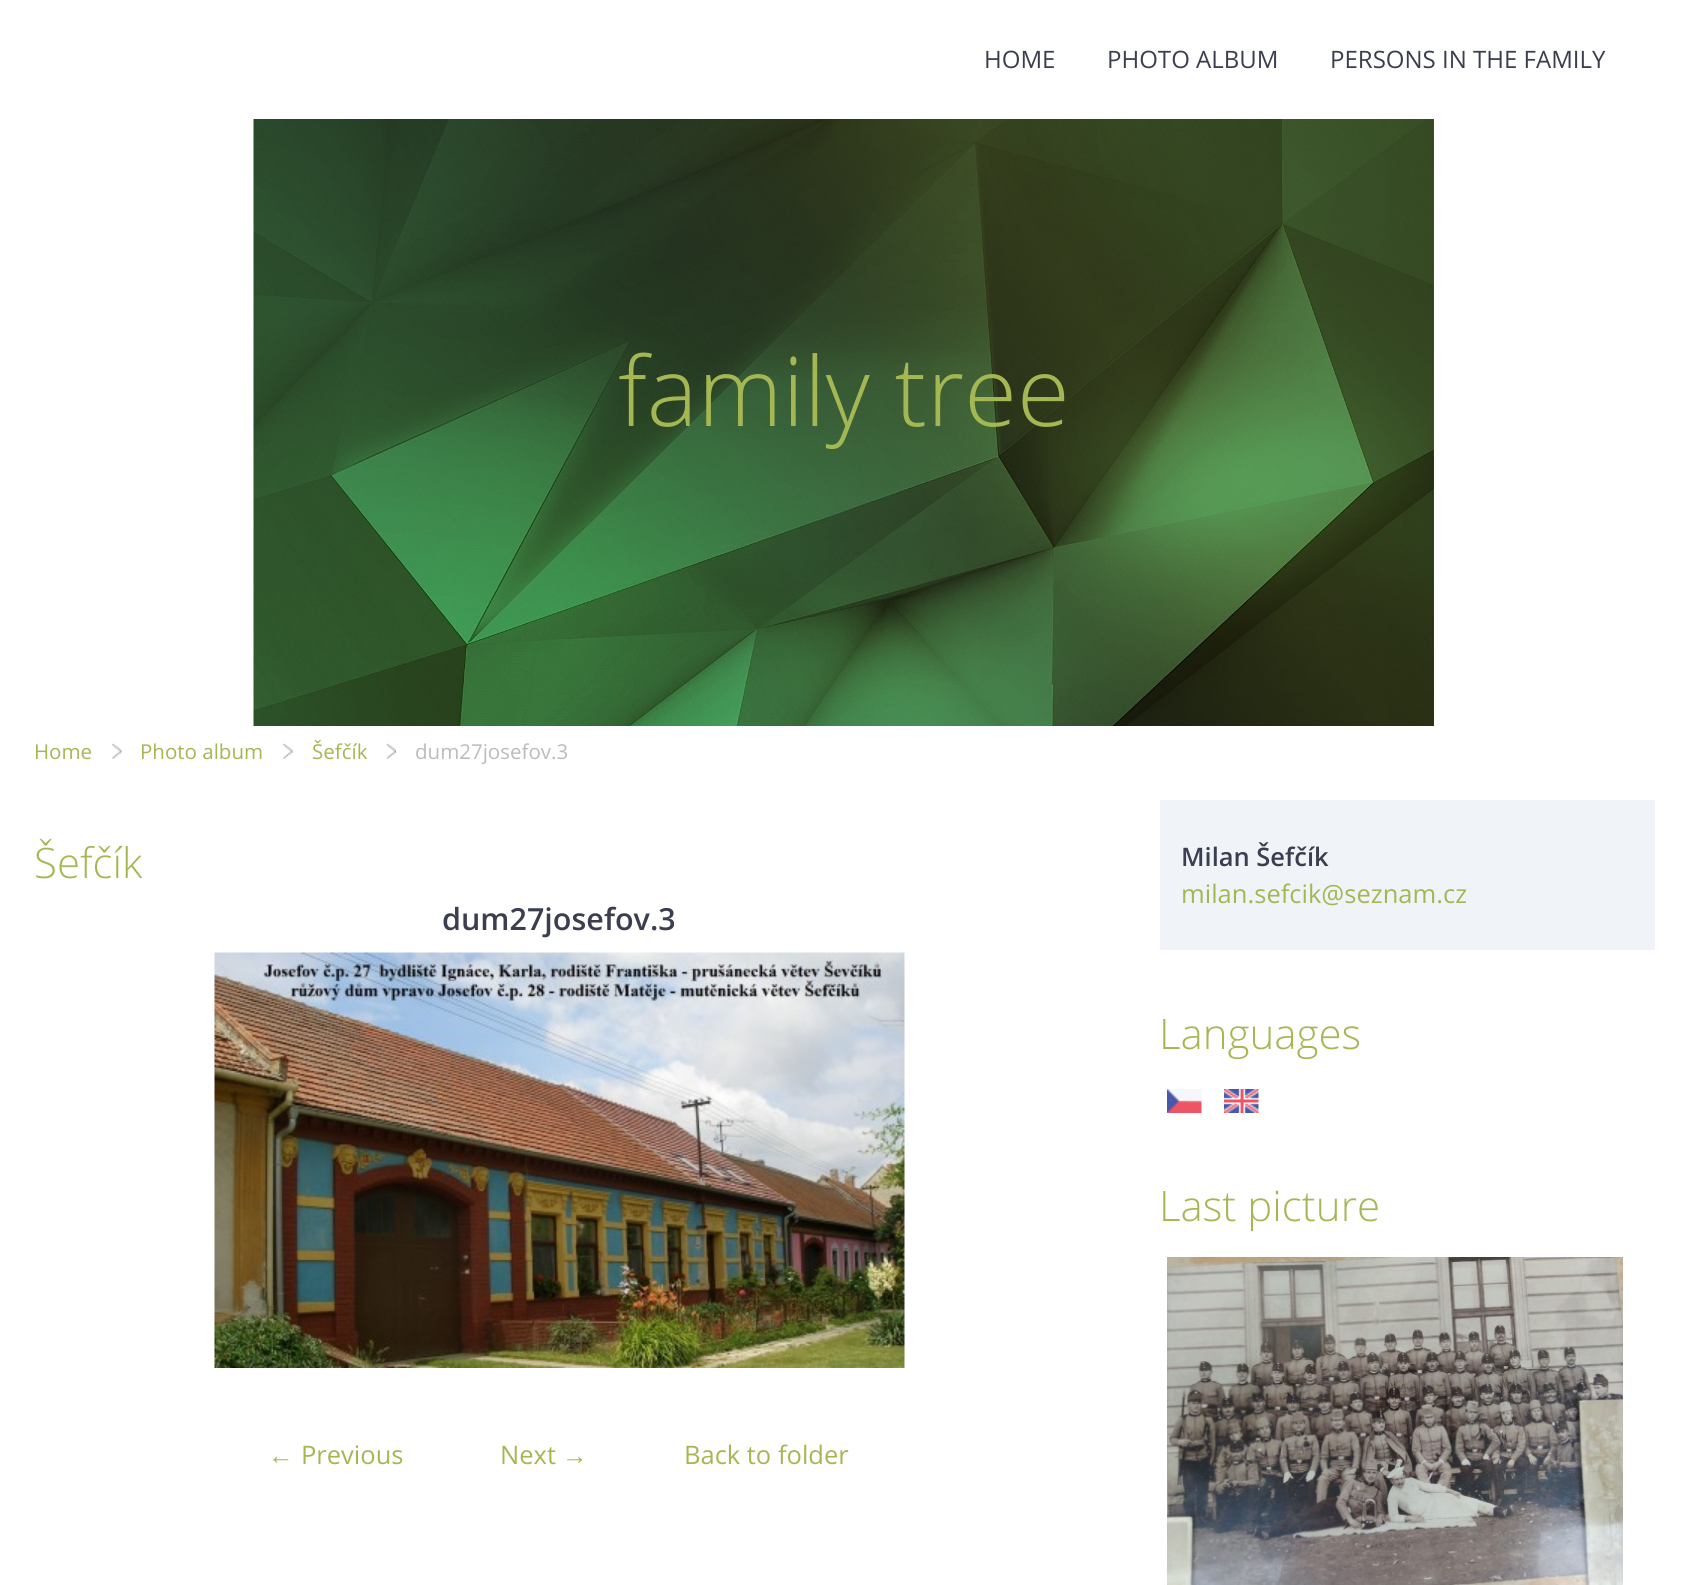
import math
import cairo

surface = cairo.ImageSurface(cairo.FORMAT_RGB24, 1687, 1585)
ctx = cairo.Context(surface)
options = cairo.FontOptions()
options.set_hint_metrics(cairo.HINT_METRICS_OFF)
options.set_hint_style(cairo.HINT_STYLE_NONE)
ctx.set_font_options(options)
ctx.set_miter_limit(4)


def picture(path, x, y, w, h):
    ctx.save()
    ctx.set_source_surface(cairo.ImageSurface.create_from_png(path), x, y)
    ctx.rectangle(x, y, w, h)
    ctx.fill()
    ctx.restore()


ctx.set_source_rgb(1, 1, 1)
ctx.paint()
ctx.select_font_face("Open Sans")
ctx.set_font_size(24)
ctx.set_source_rgb(0.231, 0.243, 0.31)
ctx.move_to(984, 68)
ctx.show_text("HOME")
ctx.move_to(1107, 68)
ctx.show_text("PHOTO ALBUM")
ctx.move_to(1330, 68)
ctx.show_text("PERSONS IN THE FAMILY")
picture("img1.png", 253, 119, 1181, 607)
ctx.select_font_face("Open Sans Light")
ctx.set_font_size(96)
ctx.set_source_rgb(0.647, 0.718, 0.325)
ctx.move_to(618, 426)
ctx.show_text("family tree")
ctx.select_font_face("Open Sans")
ctx.set_font_size(20.5)
ctx.move_to(34, 759)
ctx.show_text("Home")
picture("img2.png", 112, 743, 10, 16)
ctx.move_to(140, 759)
ctx.show_text("Photo album")
picture("img3.png", 283, 743, 10, 16)
ctx.move_to(312, 759)
ctx.show_text("Šefčík")
picture("img4.png", 386, 743, 10, 16)
ctx.set_source_rgb(0.733, 0.733, 0.733)
ctx.move_to(415, 759)
ctx.show_text("dum27josefov.3")
ctx.select_font_face("Open Sans Light")
ctx.set_font_size(42)
ctx.set_source_rgb(0.647, 0.718, 0.325)
ctx.move_to(34, 878)
ctx.show_text("Šefčík")
ctx.select_font_face("Open Sans SemiBold")
ctx.set_font_size(30.5)
ctx.set_source_rgb(0.231, 0.243, 0.31)
ctx.move_to(442, 930)
ctx.show_text("dum27josefov.3")
picture("img5.png", 214, 952, 691, 416)
ctx.select_font_face("Liberation Serif")
ctx.set_font_size(25.5)
ctx.set_source_rgb(0.647, 0.718, 0.325)
ctx.move_to(268, 1464)
ctx.show_text("←")
ctx.select_font_face("Open Sans")
ctx.move_to(301, 1464)
ctx.show_text("Previous")
ctx.move_to(500, 1464)
ctx.show_text("Next")
ctx.select_font_face("Liberation Serif")
ctx.move_to(562, 1464)
ctx.show_text("→")
ctx.select_font_face("Open Sans")
ctx.move_to(684, 1464)
ctx.show_text("Back to folder")
ctx.set_source_rgb(0.941, 0.957, 0.969)
ctx.rectangle(1160, 800, 495, 150)
ctx.fill()
ctx.select_font_face("Open Sans SemiBold")
ctx.set_source_rgb(0.231, 0.243, 0.31)
ctx.move_to(1181, 866)
ctx.show_text("Milan Šefčík")
ctx.select_font_face("Open Sans")
ctx.set_source_rgb(0.647, 0.718, 0.325)
ctx.move_to(1181, 903)
ctx.show_text("milan.sefcik@seznam.cz")
ctx.select_font_face("Open Sans Light")
ctx.set_font_size(42)
ctx.move_to(1159, 1049)
ctx.show_text("Languages")
picture("img6.png", 1167, 1089, 35, 24)
picture("img7.png", 1224, 1089, 35, 24)
ctx.move_to(1159, 1221)
ctx.show_text("Last picture")
picture("img8.png", 1167, 1257, 456, 328)
surface.write_to_png("page.png")
